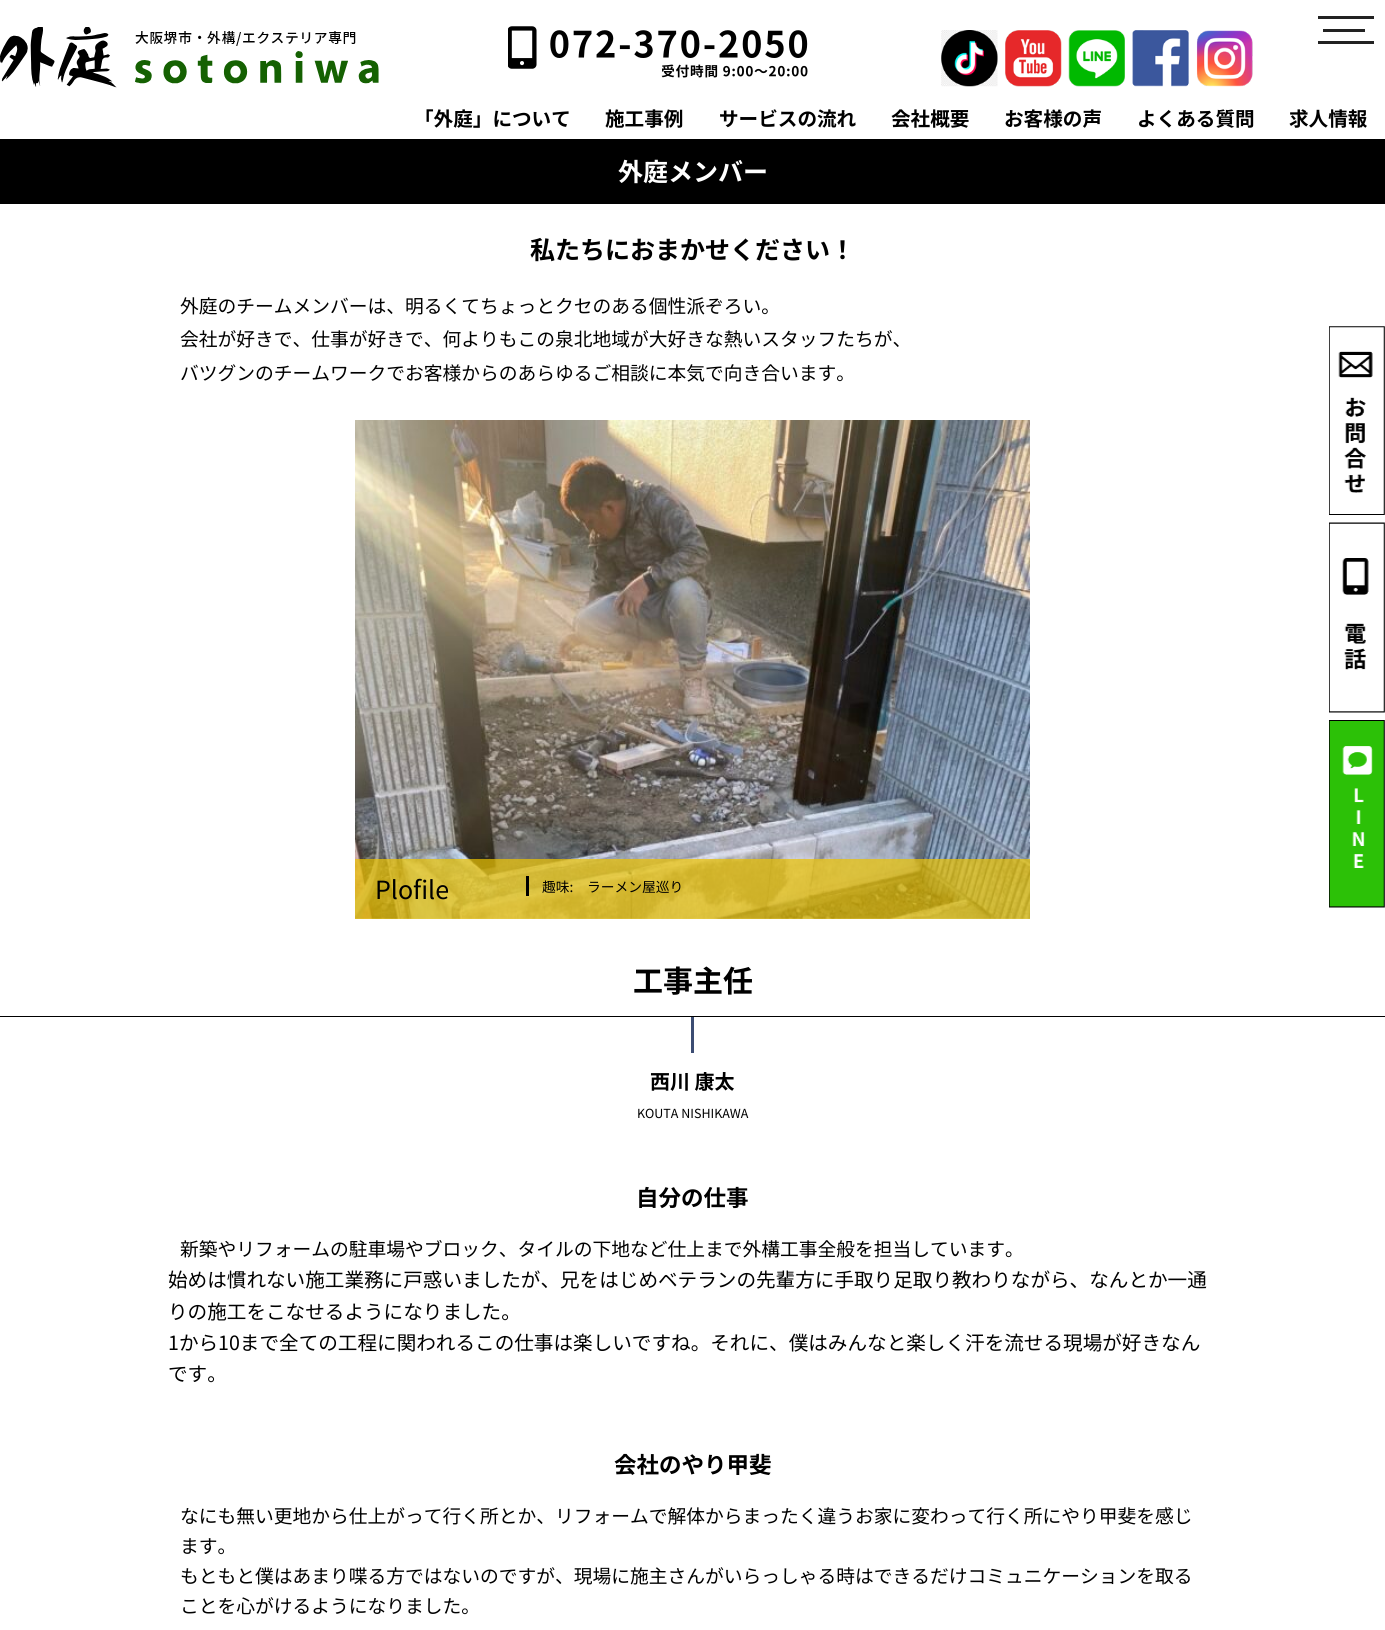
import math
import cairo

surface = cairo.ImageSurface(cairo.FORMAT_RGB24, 1385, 1630)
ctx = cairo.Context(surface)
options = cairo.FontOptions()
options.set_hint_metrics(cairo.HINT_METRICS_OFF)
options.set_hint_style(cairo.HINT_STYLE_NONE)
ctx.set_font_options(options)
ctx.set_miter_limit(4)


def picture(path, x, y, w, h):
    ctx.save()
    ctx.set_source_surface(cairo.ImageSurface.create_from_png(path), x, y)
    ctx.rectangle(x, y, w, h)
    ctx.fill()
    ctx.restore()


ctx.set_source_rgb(1, 1, 1)
ctx.paint()
picture("img1.png", 0, 27, 379, 61)
picture("img2.png", 508, 26, 300, 52)
picture("img3.png", 941, 30, 57, 57)
picture("img4.png", 1005, 30, 57, 57)
picture("img5.png", 1068, 30, 57, 57)
picture("img6.png", 1132, 30, 57, 57)
picture("img7.png", 1196, 30, 57, 57)
ctx.set_source_rgb(0.133, 0.133, 0.133)
ctx.rectangle(1323, 29, 42, 3)
ctx.fill()
ctx.rectangle(1318, 16, 56, 3)
ctx.fill()
ctx.rectangle(1318, 41, 56, 3)
ctx.fill()
ctx.select_font_face("Noto Sans JP", cairo.FONT_SLANT_NORMAL, cairo.FONT_WEIGHT_BOLD)
ctx.set_font_size(19.6)
ctx.set_source_rgb(0, 0, 0)
ctx.move_to(414, 126)
ctx.show_text("「外庭」について")
ctx.move_to(605, 126)
ctx.show_text("施工事例")
ctx.move_to(719, 126)
ctx.show_text("サービスの流れ")
ctx.move_to(891, 126)
ctx.show_text("会社概要")
ctx.move_to(1004, 126)
ctx.show_text("お客様の声")
ctx.move_to(1137, 126)
ctx.show_text("よくある質問")
ctx.move_to(1289, 126)
ctx.show_text("求人情報")
ctx.rectangle(0, 139, 1385, 65)
ctx.fill()
ctx.set_font_size(25)
ctx.set_source_rgb(1, 1, 1)
ctx.move_to(618, 181)
ctx.show_text("外庭メンバー")
ctx.set_source_rgb(0, 0, 0)
ctx.move_to(530, 259)
ctx.show_text("私たちにおまかせください！")
ctx.select_font_face("Noto Sans JP")
ctx.set_font_size(18.75)
ctx.move_to(180, 313)
ctx.show_text("外庭のチームメンバーは、明るくてちょっとクセのある個性派ぞろい。")
ctx.move_to(180, 346)
ctx.show_text("会社が好きで、仕事が好きで、何よりもこの泉北地域が大好きな熱いスタッフたちが、")
ctx.move_to(180, 380)
ctx.show_text("バツグンのチームワークでお客様からのあらゆるご相談に本気で向き合います。")
picture("img8.png", 355, 420, 675, 499)
ctx.set_source_rgba(0.929, 0.769, 0, 0.7)
ctx.rectangle(355, 859, 675, 60)
ctx.fill()
ctx.set_font_size(25)
ctx.set_source_rgb(0, 0, 0)
ctx.move_to(375, 899)
ctx.show_text("Plofile")
ctx.rectangle(526, 876, 3, 20)
ctx.fill()
ctx.set_font_size(13.75)
ctx.move_to(542, 892)
ctx.show_text("趣味:　ラーメン屋巡り")
ctx.rectangle(0, 1016, 1385, 1)
ctx.fill()
ctx.select_font_face("Noto Sans JP", cairo.FONT_SLANT_NORMAL, cairo.FONT_WEIGHT_BOLD)
ctx.set_font_size(30)
ctx.move_to(633, 992)
ctx.show_text("工事主任")
ctx.set_source_rgb(0.235, 0.302, 0.451)
ctx.rectangle(691, 1017, 3, 36)
ctx.fill()
ctx.set_font_size(20)
ctx.set_source_rgb(0, 0, 0)
ctx.move_to(650, 1089)
ctx.show_text("西川 康太")
ctx.select_font_face("Noto Sans JP")
ctx.set_font_size(12.5)
ctx.move_to(637, 1118)
ctx.show_text("KOUTA NISHIKAWA")
ctx.select_font_face("Noto Sans JP", cairo.FONT_SLANT_NORMAL, cairo.FONT_WEIGHT_BOLD)
ctx.set_font_size(22.5)
ctx.move_to(636, 1206)
ctx.show_text("自分の仕事")
ctx.select_font_face("Noto Sans JP")
ctx.set_font_size(18.75)
ctx.move_to(180, 1256)
ctx.show_text("新築やリフォームの駐車場やブロック、タイルの下地など仕上まで外構工事全般を担当しています。")
ctx.set_font_size(19.6)
ctx.move_to(168, 1287)
ctx.show_text("始めは慣れない施工業務に戸惑いましたが、兄をはじめベテランの先輩方に手取り足取り教わりながら、なんとか一通")
ctx.move_to(168, 1319)
ctx.show_text("りの施工をこなせるようになりました。")
ctx.move_to(168, 1350)
ctx.show_text("1から10まで全ての工程に関われるこの仕事は楽しいですね。それに、僕はみんなと楽しく汗を流せる現場が好きなん")
ctx.move_to(168, 1381)
ctx.show_text("です。")
ctx.select_font_face("Noto Sans JP", cairo.FONT_SLANT_NORMAL, cairo.FONT_WEIGHT_BOLD)
ctx.set_font_size(22.5)
ctx.move_to(614, 1473)
ctx.show_text("会社のやり甲斐")
ctx.select_font_face("Noto Sans JP")
ctx.set_font_size(18.75)
ctx.move_to(180, 1523)
ctx.show_text("なにも無い更地から仕上がって行く所とか、リフォームで解体からまったく違うお家に変わって行く所にやり甲斐を感じ")
ctx.move_to(180, 1553)
ctx.show_text("ます。")
ctx.move_to(180, 1583)
ctx.show_text("もともと僕はあまり喋る方ではないのですが、現場に施主さんがいらっしゃる時はできるだけコミュニケーションを取る")
ctx.move_to(180, 1613)
ctx.show_text("ことを心がけるようになりました。")
picture("img9.png", 1329, 326, 56, 189)
picture("img10.png", 1329, 522, 56, 191)
picture("img11.png", 1329, 720, 56, 188)
surface.write_to_png("page.png")
